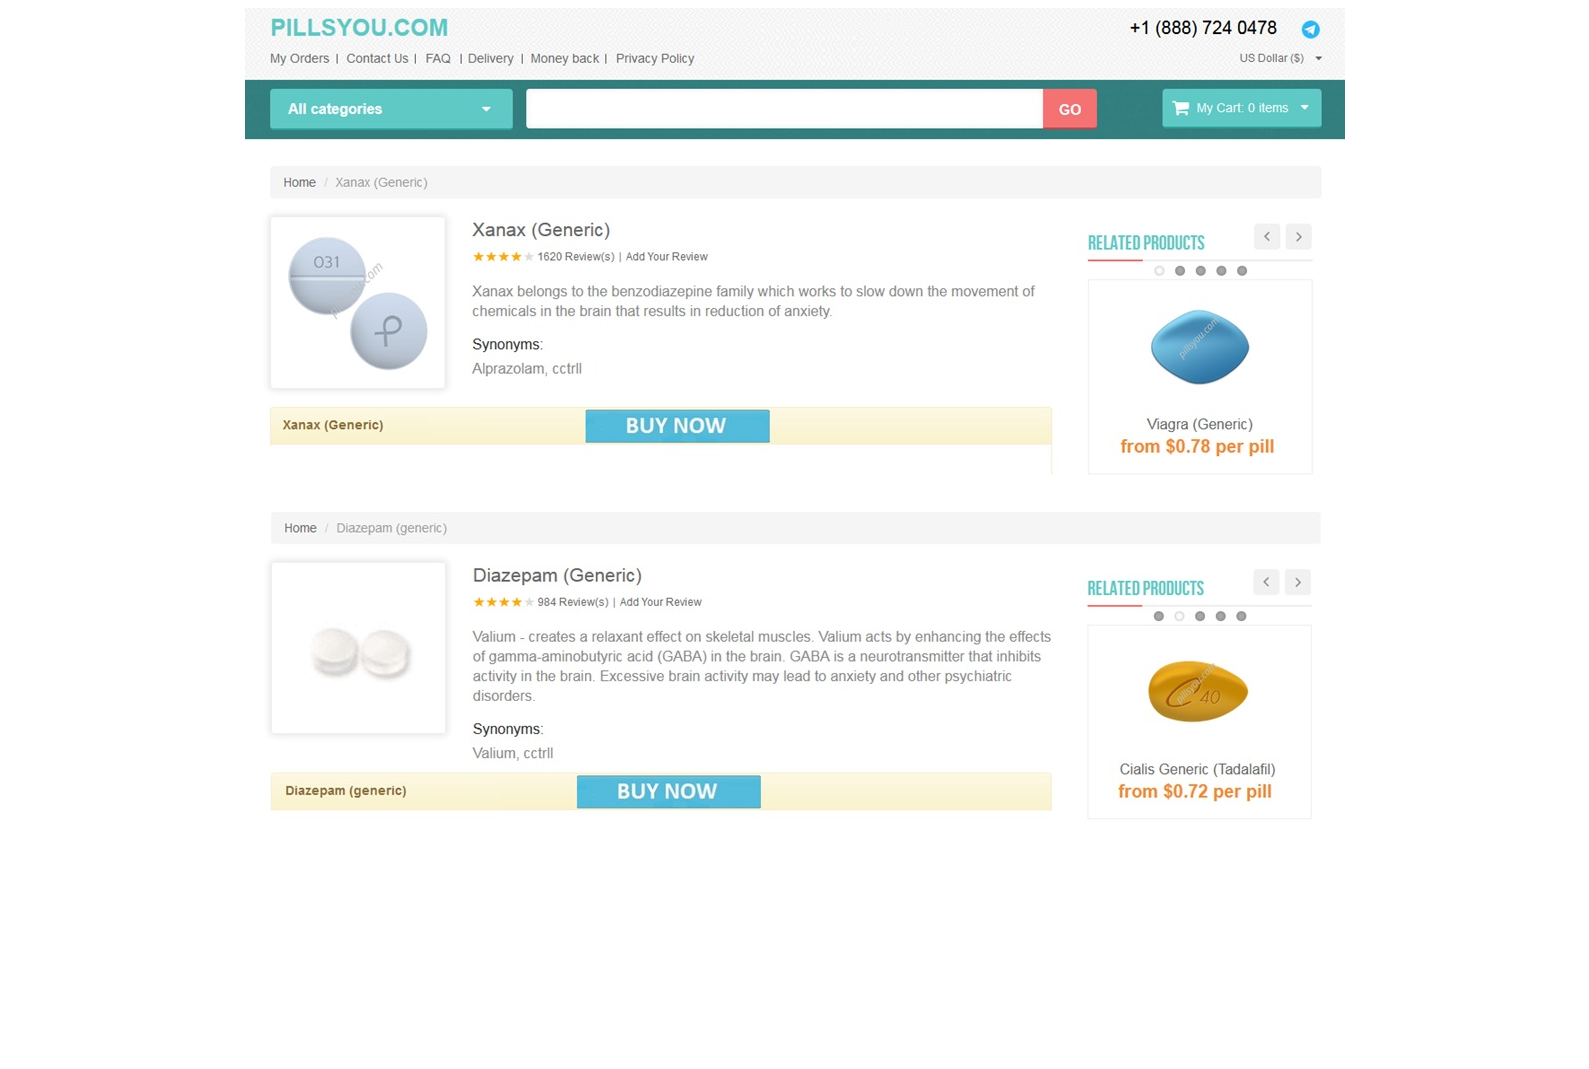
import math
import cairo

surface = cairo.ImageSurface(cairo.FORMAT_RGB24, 1589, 1069)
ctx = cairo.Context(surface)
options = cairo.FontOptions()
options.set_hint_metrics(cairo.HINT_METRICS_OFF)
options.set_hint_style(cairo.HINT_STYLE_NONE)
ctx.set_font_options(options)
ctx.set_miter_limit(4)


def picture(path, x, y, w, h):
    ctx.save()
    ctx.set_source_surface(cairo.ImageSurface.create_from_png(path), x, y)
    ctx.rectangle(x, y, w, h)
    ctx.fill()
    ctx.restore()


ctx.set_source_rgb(1, 1, 1)
ctx.paint()
picture("img1.png", 245, 8, 1100, 468)
picture("img2.png", 264, 512, 1057, 309)
surface.write_to_png("page.png")
